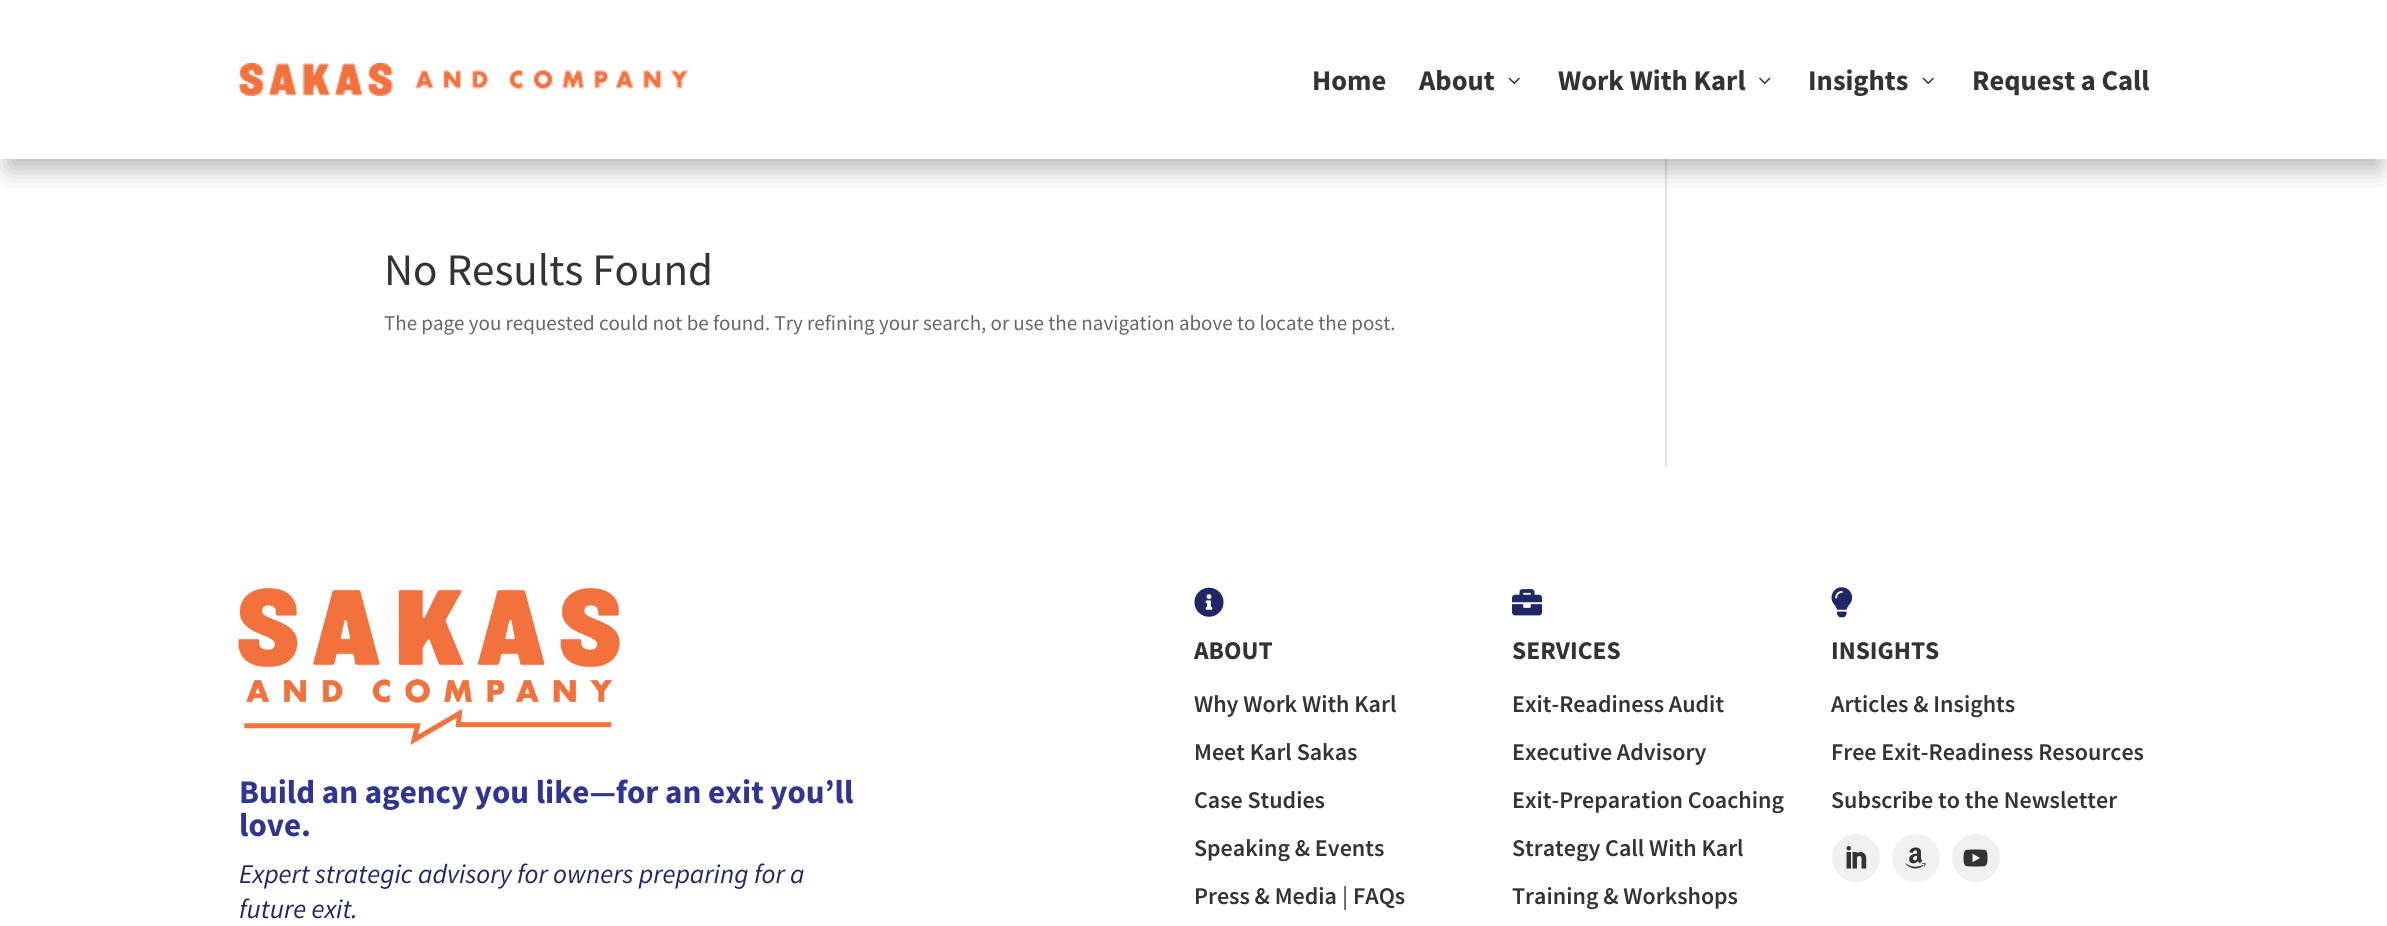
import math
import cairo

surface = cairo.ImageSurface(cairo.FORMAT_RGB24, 2387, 926)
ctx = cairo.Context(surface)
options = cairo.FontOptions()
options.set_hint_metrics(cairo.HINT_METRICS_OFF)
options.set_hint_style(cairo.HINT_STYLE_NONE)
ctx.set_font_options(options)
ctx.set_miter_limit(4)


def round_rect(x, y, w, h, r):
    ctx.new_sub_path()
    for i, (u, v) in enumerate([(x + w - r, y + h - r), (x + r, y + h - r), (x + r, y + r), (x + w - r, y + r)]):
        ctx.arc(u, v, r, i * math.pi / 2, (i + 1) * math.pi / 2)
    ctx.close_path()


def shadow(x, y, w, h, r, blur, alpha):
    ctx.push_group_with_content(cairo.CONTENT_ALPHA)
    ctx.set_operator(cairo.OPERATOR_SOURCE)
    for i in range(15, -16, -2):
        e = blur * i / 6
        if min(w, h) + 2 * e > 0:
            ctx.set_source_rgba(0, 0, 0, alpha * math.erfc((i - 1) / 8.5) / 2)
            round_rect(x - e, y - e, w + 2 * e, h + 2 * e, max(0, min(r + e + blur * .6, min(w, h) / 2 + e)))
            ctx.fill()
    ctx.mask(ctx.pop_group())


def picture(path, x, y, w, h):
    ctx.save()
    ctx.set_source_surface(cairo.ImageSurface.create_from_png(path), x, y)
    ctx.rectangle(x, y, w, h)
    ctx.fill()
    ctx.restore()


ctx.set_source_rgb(1, 1, 1)
ctx.paint()
ctx.set_source_rgb(0.886, 0.886, 0.886)
ctx.rectangle(1665, 159, 2, 308)
ctx.fill()
ctx.save()
ctx.rectangle(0, 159, 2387, 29)
ctx.clip()
ctx.set_source_rgb(0, 0, 0)
shadow(9, 27, 2370, 141, 0, 13.5, 0.3)
ctx.restore()
picture("img1.png", 238, 63, 451, 33)
ctx.select_font_face("Source Sans Pro", cairo.FONT_SLANT_NORMAL, cairo.FONT_WEIGHT_BOLD)
ctx.set_font_size(28.5)
ctx.set_source_rgb(0.2, 0.2, 0.2)
ctx.move_to(1312, 90)
ctx.show_text("Home")
ctx.move_to(1419, 90)
ctx.show_text("About")
picture("img2.png", 1508, 77, 12, 7)
ctx.move_to(1558, 90)
ctx.show_text("Work With Karl")
picture("img3.png", 1759, 77, 12, 7)
ctx.move_to(1808, 90)
ctx.show_text("Insights")
picture("img2.png", 1922, 77, 12, 7)
ctx.move_to(1972, 90)
ctx.show_text("Request a Call")
ctx.select_font_face("Source Sans Pro")
ctx.set_font_size(45)
ctx.move_to(384, 285)
ctx.show_text("No Results Found")
ctx.set_font_size(21)
ctx.set_source_rgb(0.4, 0.4, 0.4)
ctx.move_to(384, 330)
ctx.show_text("The page you requested could not be found. Try refining your search, or use the navigation above to locate the post.")
picture("img4.png", 1194, 587, 30, 30)
ctx.select_font_face("Source Sans Pro", cairo.FONT_SLANT_NORMAL, cairo.FONT_WEIGHT_BOLD)
ctx.set_font_size(25.5)
ctx.set_source_rgb(0.2, 0.2, 0.2)
ctx.move_to(1194, 659)
ctx.show_text("ABOUT")
ctx.select_font_face("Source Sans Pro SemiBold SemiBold")
ctx.set_font_size(24)
ctx.move_to(1194, 712)
ctx.show_text("Why Work With Karl")
ctx.move_to(1194, 760)
ctx.show_text("Meet Karl Sakas")
ctx.move_to(1194, 808)
ctx.show_text("Case Studies")
ctx.move_to(1194, 856)
ctx.show_text("Speaking & Events")
ctx.move_to(1194, 904)
ctx.show_text("Press & Media")
ctx.set_source_rgb(0.4, 0.4, 0.4)
ctx.move_to(1342, 904)
ctx.show_text("|")
ctx.set_source_rgb(0.2, 0.2, 0.2)
ctx.move_to(1353, 904)
ctx.show_text("FAQs")
picture("img5.png", 1512, 589, 30, 27)
ctx.select_font_face("Source Sans Pro", cairo.FONT_SLANT_NORMAL, cairo.FONT_WEIGHT_BOLD)
ctx.set_font_size(25.5)
ctx.move_to(1512, 659)
ctx.show_text("SERVICES")
ctx.select_font_face("Source Sans Pro SemiBold SemiBold")
ctx.set_font_size(24)
ctx.move_to(1512, 712)
ctx.show_text("Exit-Readiness Audit")
ctx.move_to(1512, 760)
ctx.show_text("Executive Advisory")
ctx.move_to(1512, 808)
ctx.show_text("Exit-Preparation Coaching")
ctx.move_to(1512, 856)
ctx.show_text("Strategy Call With Karl")
ctx.move_to(1512, 904)
ctx.show_text("Training & Workshops")
picture("img6.png", 1831, 587, 22, 31)
ctx.select_font_face("Source Sans Pro", cairo.FONT_SLANT_NORMAL, cairo.FONT_WEIGHT_BOLD)
ctx.set_font_size(25.5)
ctx.move_to(1831, 659)
ctx.show_text("INSIGHTS")
ctx.select_font_face("Source Sans Pro SemiBold SemiBold")
ctx.set_font_size(24)
ctx.move_to(1831, 712)
ctx.show_text("Articles & Insights")
ctx.move_to(1831, 760)
ctx.show_text("Free Exit-Readiness Resources")
ctx.move_to(1831, 808)
ctx.show_text("Subscribe to the Newsletter")
ctx.set_source_rgb(0.945, 0.945, 0.945)
ctx.new_path()
ctx.arc(1856, 858, 24, 0, 2 * math.pi)
ctx.fill()
picture("img7.png", 1846, 846, 21, 23)
ctx.arc(1916, 858, 24, 0, 2 * math.pi)
ctx.fill()
picture("img8.png", 1905, 847, 21, 22)
ctx.arc(1976, 858, 24, 0, 2 * math.pi)
ctx.fill()
picture("img9.png", 1963, 849, 25, 18)
picture("img10.png", 238, 588, 382, 157)
ctx.select_font_face("Source Sans Pro", cairo.FONT_SLANT_NORMAL, cairo.FONT_WEIGHT_BOLD)
ctx.set_font_size(33)
ctx.set_source_rgb(0.184, 0.208, 0.565)
ctx.move_to(239, 803)
ctx.show_text("Build an agency you like—for an exit you’ll")
ctx.move_to(239, 836)
ctx.show_text("love.")
ctx.select_font_face("Source Sans Pro", cairo.FONT_SLANT_ITALIC)
ctx.set_font_size(27)
ctx.set_source_rgb(0.125, 0.153, 0.4)
ctx.move_to(239, 883)
ctx.show_text("Expert strategic advisory for owners preparing for a")
ctx.move_to(239, 918)
ctx.show_text("future exit.")
surface.write_to_png("page.png")
